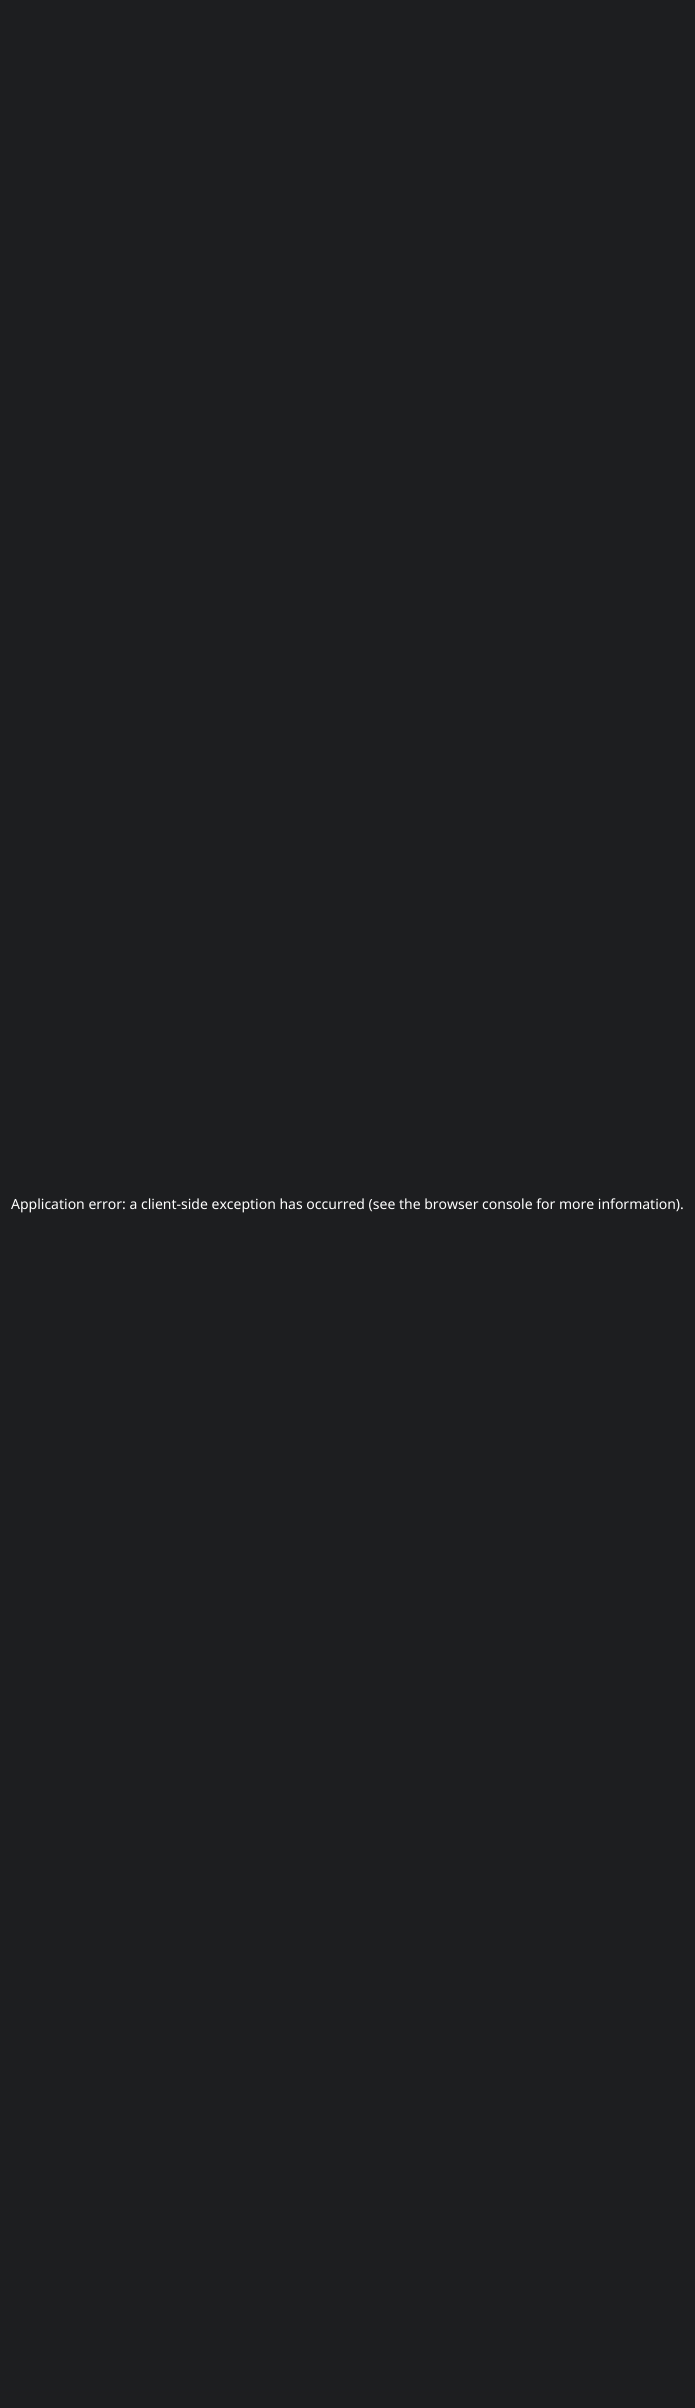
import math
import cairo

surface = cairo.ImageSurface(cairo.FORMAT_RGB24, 695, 2408)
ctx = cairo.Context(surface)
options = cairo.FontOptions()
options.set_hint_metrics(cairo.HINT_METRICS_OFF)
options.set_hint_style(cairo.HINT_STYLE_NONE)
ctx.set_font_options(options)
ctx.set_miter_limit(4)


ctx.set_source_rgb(0.114, 0.118, 0.125)
ctx.paint()
ctx.select_font_face("Noto Sans")
ctx.set_font_size(14)
ctx.set_source_rgb(1, 1, 1)
ctx.move_to(11, 1209)
ctx.show_text("Application error: a client-side exception has occurred (see the browser console for more information).")
surface.write_to_png("page.png")
